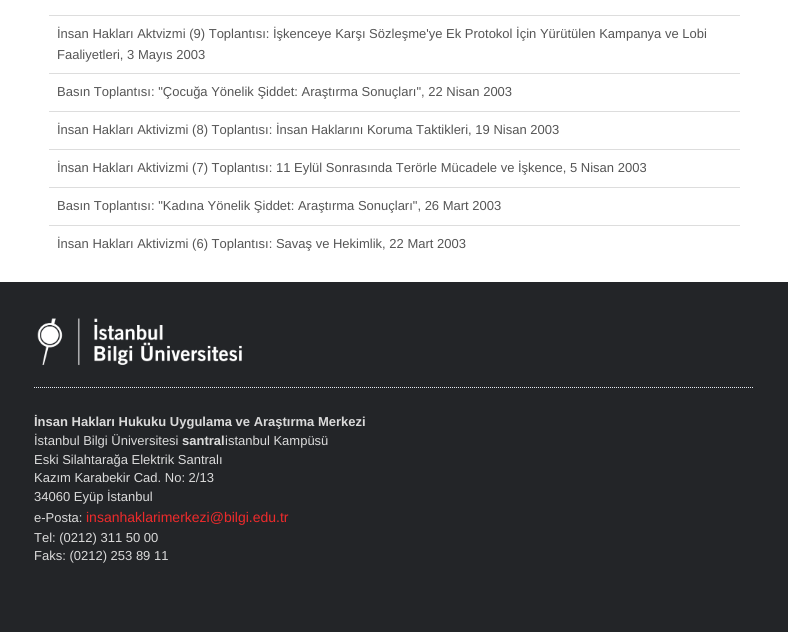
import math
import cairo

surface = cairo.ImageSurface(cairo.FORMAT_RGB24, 788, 632)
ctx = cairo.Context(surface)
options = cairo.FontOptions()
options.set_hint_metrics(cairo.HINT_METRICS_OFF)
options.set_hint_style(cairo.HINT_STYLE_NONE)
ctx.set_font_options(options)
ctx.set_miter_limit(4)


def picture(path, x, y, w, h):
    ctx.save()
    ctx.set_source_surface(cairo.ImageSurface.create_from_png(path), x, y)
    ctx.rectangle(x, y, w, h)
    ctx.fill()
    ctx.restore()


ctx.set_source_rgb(1, 1, 1)
ctx.paint()
ctx.set_source_rgb(0.867, 0.867, 0.867)
ctx.rectangle(49, 15, 691, 1)
ctx.fill()
ctx.select_font_face("Liberation Sans")
ctx.set_font_size(13)
ctx.set_source_rgb(0.333, 0.333, 0.333)
ctx.move_to(57, 38)
ctx.show_text("İnsan Hakları Aktvizmi (9) Toplantısı: İşkenceye Karşı Sözleşme'ye Ek Protokol İçin Yürütülen Kampanya ve Lobi")
ctx.move_to(57, 59)
ctx.show_text("Faaliyetleri, 3 Mayıs 2003")
ctx.set_source_rgb(0.867, 0.867, 0.867)
ctx.rectangle(49, 73, 691, 1)
ctx.fill()
ctx.set_source_rgb(0.333, 0.333, 0.333)
ctx.move_to(57, 96)
ctx.show_text("Basın Toplantısı: \"Çocuğa Yönelik Şiddet: Araştırma Sonuçları\", 22 Nisan 2003")
ctx.set_source_rgb(0.867, 0.867, 0.867)
ctx.rectangle(49, 111, 691, 1)
ctx.fill()
ctx.set_source_rgb(0.333, 0.333, 0.333)
ctx.move_to(57, 134)
ctx.show_text("İnsan Hakları Aktivizmi (8) Toplantısı: İnsan Haklarını Koruma Taktikleri, 19 Nisan 2003")
ctx.set_source_rgb(0.867, 0.867, 0.867)
ctx.rectangle(49, 149, 691, 1)
ctx.fill()
ctx.set_source_rgb(0.333, 0.333, 0.333)
ctx.move_to(57, 172)
ctx.show_text("İnsan Hakları Aktivizmi (7) Toplantısı: 11 Eylül Sonrasında Terörle Mücadele ve İşkence, 5 Nisan 2003")
ctx.set_source_rgb(0.867, 0.867, 0.867)
ctx.rectangle(49, 187, 691, 1)
ctx.fill()
ctx.set_source_rgb(0.333, 0.333, 0.333)
ctx.move_to(57, 210)
ctx.show_text("Basın Toplantısı: \"Kadına Yönelik Şiddet: Araştırma Sonuçları\", 26 Mart 2003")
ctx.set_source_rgb(0.867, 0.867, 0.867)
ctx.rectangle(49, 225, 691, 1)
ctx.fill()
ctx.set_source_rgb(0.333, 0.333, 0.333)
ctx.move_to(57, 248)
ctx.show_text("İnsan Hakları Aktivizmi (6) Toplantısı: Savaş ve Hekimlik, 22 Mart 2003")
ctx.set_source_rgb(0.137, 0.145, 0.157)
ctx.rectangle(0, 282, 788, 350)
ctx.fill()
ctx.new_path()
ctx.move_to(34, 387.5)
ctx.line_to(754, 387.5)
ctx.set_source_rgb(0.894, 0.914, 0.941)
ctx.set_line_width(1)
ctx.set_dash([1, 1])
ctx.stroke()
picture("img1.png", 37, 318, 205, 48)
ctx.select_font_face("Liberation Sans", cairo.FONT_SLANT_NORMAL, cairo.FONT_WEIGHT_BOLD)
ctx.set_source_rgb(0.855, 0.855, 0.855)
ctx.move_to(34, 426)
ctx.show_text("İnsan Hakları Hukuku Uygulama ve Araştırma Merkezi")
ctx.select_font_face("Liberation Sans")
ctx.move_to(34, 445)
ctx.show_text("İstanbul Bilgi Üniversitesi")
ctx.select_font_face("Liberation Sans", cairo.FONT_SLANT_NORMAL, cairo.FONT_WEIGHT_BOLD)
ctx.move_to(182, 445)
ctx.show_text("santral")
ctx.select_font_face("Liberation Sans")
ctx.move_to(225, 445)
ctx.show_text("istanbul Kampüsü")
ctx.move_to(34, 464)
ctx.show_text("Eski Silahtarağa Elektrik Santralı")
ctx.move_to(34, 482)
ctx.show_text("Kazım Karabekir Cad. No: 2/13")
ctx.move_to(34, 501)
ctx.show_text("34060 Eyüp İstanbul")
ctx.move_to(34, 522)
ctx.show_text("e-Posta:")
ctx.set_font_size(14)
ctx.set_source_rgb(0.933, 0.165, 0.169)
ctx.move_to(86, 522)
ctx.show_text("insanhaklarimerkezi@bilgi.edu.tr")
ctx.set_font_size(13)
ctx.set_source_rgb(0.855, 0.855, 0.855)
ctx.move_to(34, 542)
ctx.show_text("Tel: (0212) 311 50 00")
ctx.move_to(34, 560)
ctx.show_text("Faks: (0212) 253 89 11")
surface.write_to_png("page.png")
